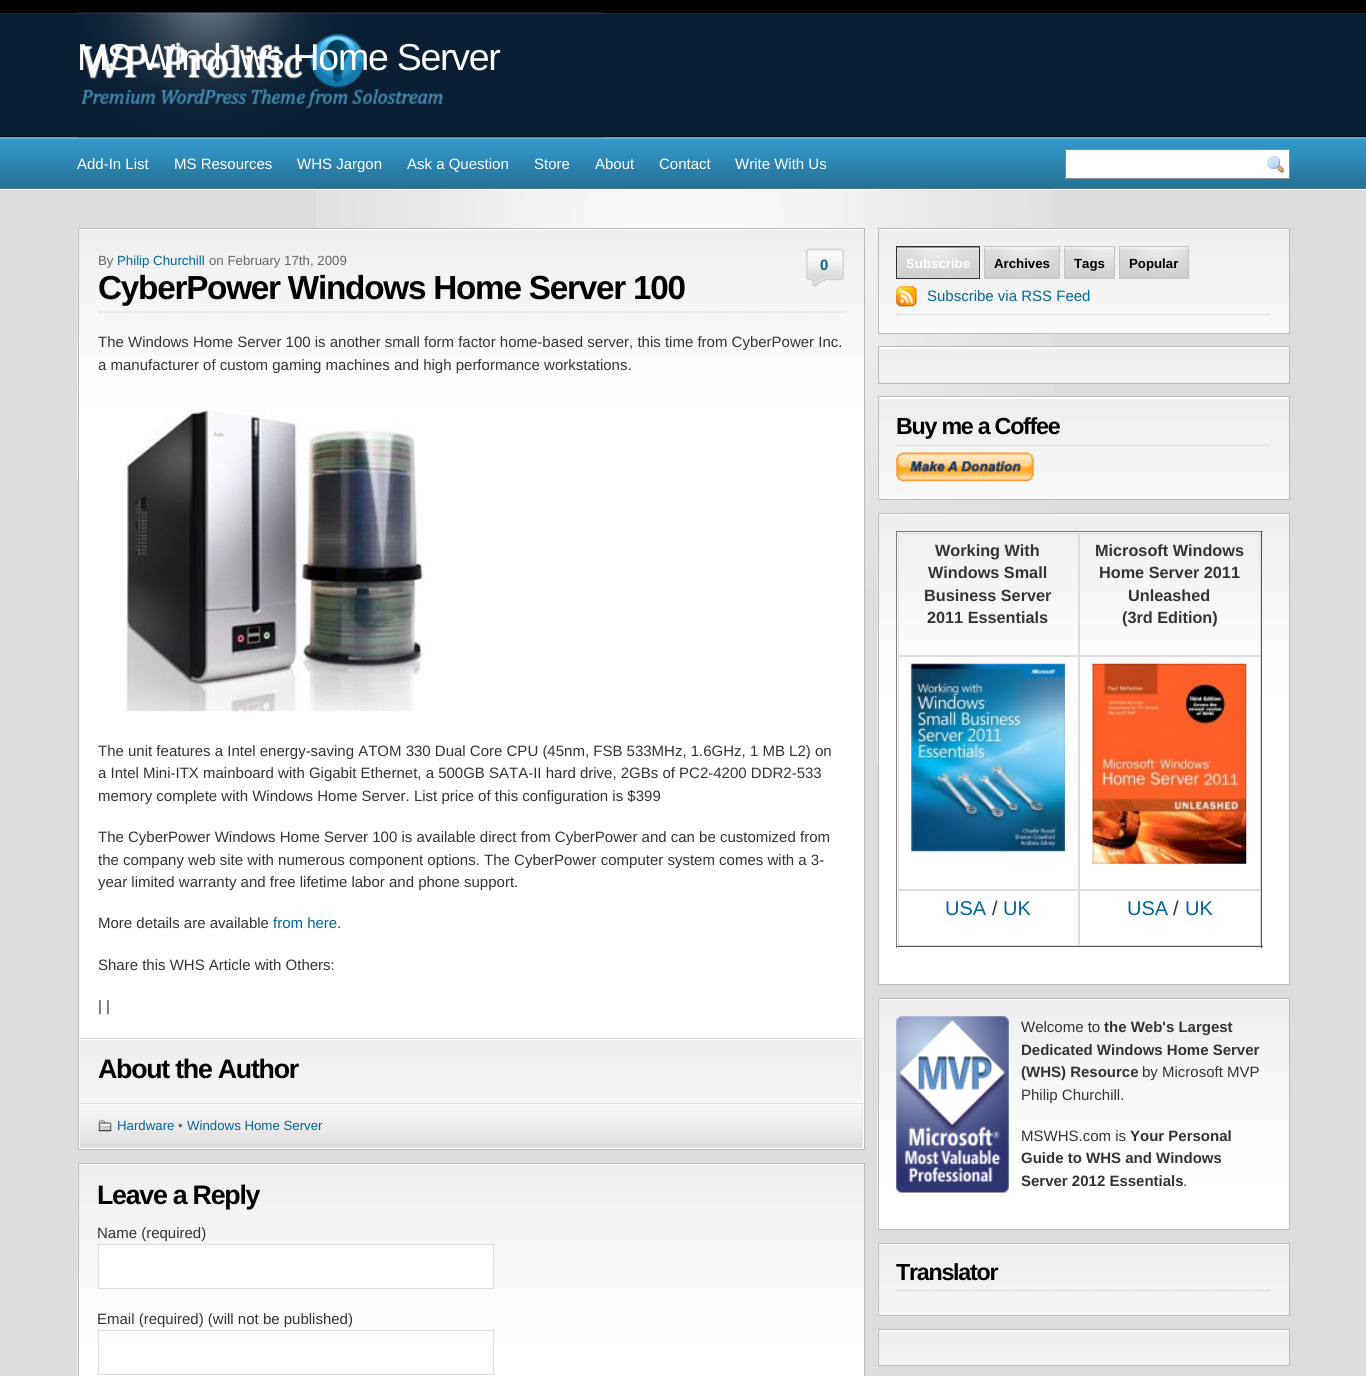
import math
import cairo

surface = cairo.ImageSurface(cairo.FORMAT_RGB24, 1366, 1376)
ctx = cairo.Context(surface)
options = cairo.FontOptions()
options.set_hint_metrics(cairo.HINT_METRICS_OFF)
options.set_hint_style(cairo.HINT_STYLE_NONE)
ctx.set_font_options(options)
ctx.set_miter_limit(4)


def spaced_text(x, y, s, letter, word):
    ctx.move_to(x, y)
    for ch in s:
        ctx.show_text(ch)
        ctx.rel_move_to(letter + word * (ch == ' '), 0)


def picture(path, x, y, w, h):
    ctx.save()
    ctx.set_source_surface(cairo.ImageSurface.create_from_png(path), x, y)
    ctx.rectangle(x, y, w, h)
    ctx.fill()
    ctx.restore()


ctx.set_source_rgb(0.867, 0.867, 0.867)
ctx.paint()
picture("img1.png", 0, 13, 1366, 125)
ctx.set_source_rgb(0, 0, 0)
ctx.rectangle(0, 0, 1366, 13)
ctx.fill()
picture("img2.png", 77, 12, 527, 126)
ctx.select_font_face("Liberation Sans")
ctx.set_font_size(37.5)
ctx.set_source_rgb(1, 1, 1)
spaced_text(77, 70, "MS Windows Home Server", -1.25, 0)
picture("img3.png", 0, 137, 1366, 52)
ctx.set_font_size(15)
ctx.move_to(77, 169)
ctx.show_text("Add-In List")
ctx.move_to(174, 169)
ctx.show_text("MS Resources")
ctx.move_to(297, 169)
ctx.show_text("WHS Jargon")
ctx.move_to(407, 169)
ctx.show_text("Ask a Question")
ctx.move_to(534, 169)
ctx.show_text("Store")
ctx.move_to(595, 169)
ctx.show_text("About")
ctx.move_to(659, 169)
ctx.show_text("Contact")
ctx.move_to(735, 169)
ctx.show_text("Write With Us")
ctx.rectangle(1066, 150, 223, 28)
ctx.fill()
ctx.set_source_rgb(0.533, 0.533, 0.533)
ctx.rectangle(1065, 149, 225, 1)
ctx.fill()
ctx.rectangle(1065, 178, 198, 1)
ctx.fill()
ctx.rectangle(1065, 149, 1, 30)
ctx.fill()
picture("img4.png", 1262, 156, 22, 23)
ctx.rectangle(1289, 149, 1, 30)
ctx.fill()
ctx.rectangle(1263, 178, 27, 1)
ctx.fill()
picture("img5.png", 316, 190, 737, 399)
ctx.set_source_rgb(1, 1, 1)
ctx.rectangle(0, 189, 1366, 1)
ctx.fill()
ctx.rectangle(79, 478, 785, 671)
ctx.fill()
picture("img6.png", 77, 228, 787, 251)
ctx.rectangle(78.5, 228.5, 786, 921)
ctx.set_source_rgb(0.733, 0.733, 0.733)
ctx.set_line_width(1)
ctx.stroke()
ctx.set_font_size(13.25)
ctx.set_source_rgb(0.4, 0.4, 0.4)
ctx.move_to(98, 265)
ctx.show_text("By")
ctx.set_source_rgb(0, 0.4, 0.6)
ctx.move_to(117, 265)
ctx.show_text("Philip Churchill")
ctx.set_source_rgb(0.4, 0.4, 0.4)
ctx.move_to(209, 265)
ctx.show_text("on February 17th, 2009")
picture("img7.png", 806, 248, 38, 39)
ctx.select_font_face("Liberation Sans", cairo.FONT_SLANT_NORMAL, cairo.FONT_WEIGHT_BOLD)
ctx.set_font_size(15)
ctx.set_source_rgb(0, 0.4, 0.6)
ctx.move_to(820, 270)
ctx.show_text("0")
ctx.new_path()
ctx.move_to(99, 312)
ctx.line_to(844, 312)
ctx.set_source_rgb(0.8, 0.8, 0.8)
ctx.set_line_width(1.2)
ctx.set_dash([1.25, 1.25])
ctx.stroke()
ctx.set_font_size(33.3)
ctx.set_source_rgb(0, 0, 0)
spaced_text(98, 299, "CyberPower Windows Home Server 100", -1.25, 0)
ctx.select_font_face("Liberation Sans")
ctx.set_font_size(15)
ctx.set_source_rgb(0.2, 0.2, 0.2)
ctx.move_to(98, 347)
ctx.show_text("The Windows Home Server 100 is another small form factor home-based server, this time from CyberPower Inc.")
ctx.move_to(98, 370)
ctx.show_text("a manufacturer of custom gaming machines and high performance workstations.")
picture("img8.png", 125, 409, 300, 303)
ctx.move_to(98, 756)
ctx.show_text("The unit features a Intel energy-saving ATOM 330 Dual Core CPU (45nm, FSB 533MHz, 1.6GHz, 1 MB L2) on")
ctx.move_to(98, 778)
ctx.show_text("a Intel Mini-ITX mainboard with Gigabit Ethernet, a 500GB SATA-II hard drive, 2GBs of PC2-4200 DDR2-533")
ctx.move_to(98, 801)
ctx.show_text("memory complete with Windows Home Server. List price of this configuration is $399")
ctx.move_to(98, 842)
ctx.show_text("The CyberPower Windows Home Server 100 is available direct from CyberPower and can be customized from")
ctx.move_to(98, 865)
ctx.show_text("the company web site with numerous component options. The CyberPower computer system comes with a 3-")
ctx.move_to(98, 887)
ctx.show_text("year limited warranty and free lifetime labor and phone support.")
ctx.move_to(98, 928)
ctx.show_text("More details are available")
ctx.set_source_rgb(0, 0.4, 0.6)
ctx.move_to(273, 928)
ctx.show_text("from here")
ctx.set_source_rgb(0.2, 0.2, 0.2)
ctx.move_to(337, 928)
ctx.show_text(".")
ctx.move_to(98, 970)
ctx.show_text("Share this WHS Article with Others:")
ctx.move_to(98, 1011)
ctx.show_text("| |")
picture("img9.png", 80, 1040, 783, 63)
ctx.set_source_rgb(0.867, 0.867, 0.867)
ctx.rectangle(80, 1038, 783, 1)
ctx.fill()
ctx.select_font_face("Liberation Sans", cairo.FONT_SLANT_NORMAL, cairo.FONT_WEIGHT_BOLD)
ctx.set_font_size(26.75)
ctx.set_source_rgb(0, 0, 0)
spaced_text(98, 1078, "About the Author", -1.25, 0)
ctx.set_source_rgb(0.867, 0.867, 0.867)
ctx.rectangle(80, 1103, 783, 45)
ctx.fill()
picture("img10.png", 80, 1104, 783, 39)
picture("img11.png", 98, 1119, 14, 13)
ctx.select_font_face("Liberation Sans")
ctx.set_font_size(13.25)
ctx.set_source_rgb(0, 0.4, 0.6)
ctx.move_to(117, 1130)
ctx.show_text("Hardware")
ctx.set_source_rgb(0.4, 0.4, 0.4)
ctx.move_to(178, 1130)
ctx.show_text("•")
ctx.set_source_rgb(0, 0.4, 0.6)
ctx.move_to(187, 1130)
ctx.show_text("Windows Home Server")
picture("img12.png", 77, 1163, 787, 213)
ctx.rectangle(78.5, 1163.5, 786, 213)
ctx.set_source_rgb(0.733, 0.733, 0.733)
ctx.set_line_width(1)
ctx.set_dash([])
ctx.stroke()
ctx.select_font_face("Liberation Sans", cairo.FONT_SLANT_NORMAL, cairo.FONT_WEIGHT_BOLD)
ctx.set_font_size(26.75)
ctx.set_source_rgb(0, 0, 0)
spaced_text(97, 1204, "Leave a Reply", -1.25, 0)
ctx.select_font_face("Liberation Sans")
ctx.set_font_size(15)
ctx.set_source_rgb(0.2, 0.2, 0.2)
ctx.move_to(97, 1238)
ctx.show_text("Name (required)")
ctx.set_source_rgb(1, 1, 1)
ctx.rectangle(98.5, 1244.5, 395, 44)
ctx.fill_preserve()
ctx.set_source_rgb(0.867, 0.867, 0.867)
ctx.stroke()
ctx.set_source_rgb(0.2, 0.2, 0.2)
ctx.move_to(97, 1324)
ctx.show_text("Email (required) (will not be published)")
ctx.rectangle(98.5, 1330.5, 395, 44)
ctx.set_source_rgb(0.867, 0.867, 0.867)
ctx.stroke()
picture("img13.png", 877, 229, 412, 105)
ctx.rectangle(878.5, 228.5, 411, 105)
ctx.set_source_rgb(0.733, 0.733, 0.733)
ctx.stroke()
ctx.set_source_rgb(0.2, 0.2, 0.2)
ctx.rectangle(897, 247, 82, 1)
ctx.fill()
picture("img14.png", 897, 247, 82, 31)
ctx.rectangle(896.5, 246.5, 83, 32)
ctx.stroke()
ctx.select_font_face("Liberation Sans", cairo.FONT_SLANT_NORMAL, cairo.FONT_WEIGHT_BOLD)
ctx.set_font_size(13.25)
ctx.set_source_rgb(1, 1, 1)
ctx.move_to(906, 268)
ctx.show_text("Subscribe")
picture("img15.png", 985, 248, 74, 30)
ctx.rectangle(984.5, 246.5, 75, 32)
ctx.set_source_rgb(0.773, 0.773, 0.773)
ctx.stroke()
ctx.set_source_rgb(0, 0, 0)
ctx.move_to(994, 268)
ctx.show_text("Archives")
picture("img16.png", 1065, 248, 49, 30)
ctx.rectangle(1064.5, 246.5, 50, 32)
ctx.set_source_rgb(0.773, 0.773, 0.773)
ctx.stroke()
ctx.set_source_rgb(0, 0, 0)
ctx.move_to(1074, 268)
ctx.show_text("Tags")
picture("img17.png", 1120, 248, 68, 30)
ctx.rectangle(1119.5, 246.5, 69, 32)
ctx.set_source_rgb(0.773, 0.773, 0.773)
ctx.stroke()
ctx.set_source_rgb(0, 0, 0)
ctx.move_to(1129, 268)
ctx.show_text("Popular")
picture("img18.png", 896, 286, 21, 21)
ctx.new_path()
ctx.move_to(896, 314.5)
ctx.line_to(1271, 314.5)
ctx.set_source_rgb(0.8, 0.8, 0.8)
ctx.set_line_width(1.2)
ctx.set_dash([1.25, 1.25])
ctx.stroke()
ctx.select_font_face("Liberation Sans")
ctx.set_font_size(15)
ctx.set_source_rgb(0, 0.4, 0.6)
ctx.move_to(927, 301)
ctx.show_text("Subscribe via RSS Feed")
ctx.set_source_rgb(1, 1, 1)
ctx.rectangle(879, 347, 410, 1)
ctx.fill()
picture("img19.png", 877, 347, 412, 37)
ctx.rectangle(878.5, 346.5, 411, 37)
ctx.set_source_rgb(0.733, 0.733, 0.733)
ctx.set_line_width(1)
ctx.set_dash([])
ctx.stroke()
ctx.set_source_rgb(1, 1, 1)
ctx.rectangle(879, 397, 410, 1)
ctx.fill()
picture("img20.png", 877, 397, 412, 103)
ctx.rectangle(878.5, 396.5, 411, 103)
ctx.set_source_rgb(0.733, 0.733, 0.733)
ctx.stroke()
ctx.new_path()
ctx.move_to(896, 445.5)
ctx.line_to(1271, 445.5)
ctx.set_source_rgb(0.8, 0.8, 0.8)
ctx.set_line_width(1.2)
ctx.set_dash([1.25, 1.25])
ctx.stroke()
ctx.select_font_face("Liberation Sans", cairo.FONT_SLANT_NORMAL, cairo.FONT_WEIGHT_BOLD)
ctx.set_font_size(23.25)
ctx.set_source_rgb(0, 0, 0)
spaced_text(896, 434, "Buy me a Coffee", -1.25, 0)
picture("img21.png", 896, 452, 138, 30)
ctx.set_source_rgb(1, 1, 1)
ctx.rectangle(879, 763, 410, 221)
ctx.fill()
picture("img22.png", 877, 514, 412, 250)
ctx.rectangle(878.5, 513.5, 411, 471)
ctx.set_source_rgb(0.733, 0.733, 0.733)
ctx.set_line_width(1)
ctx.set_dash([])
ctx.stroke()
ctx.set_source_rgb(0.502, 0.502, 0.502)
ctx.rectangle(896, 531, 367, 1)
ctx.fill()
ctx.set_source_rgb(0.333, 0.333, 0.333)
ctx.rectangle(1261, 531, 1, 417)
ctx.fill()
ctx.rectangle(896, 946, 367, 1)
ctx.fill()
ctx.set_source_rgb(0.502, 0.502, 0.502)
ctx.rectangle(896, 531, 1, 417)
ctx.fill()
ctx.rectangle(898.5, 533.5, 180, 122)
ctx.set_source_rgb(0.867, 0.867, 0.867)
ctx.stroke()
ctx.set_font_size(16.25)
ctx.set_source_rgb(0.2, 0.2, 0.2)
ctx.move_to(935, 556)
ctx.show_text("Working With")
ctx.move_to(928, 578)
ctx.show_text("Windows Small")
ctx.move_to(924, 601)
ctx.show_text("Business Server")
ctx.move_to(927, 623)
ctx.show_text("2011 Essentials")
ctx.rectangle(1079.5, 533.5, 181, 122)
ctx.set_source_rgb(0.867, 0.867, 0.867)
ctx.stroke()
ctx.set_source_rgb(0.2, 0.2, 0.2)
ctx.move_to(1095, 556)
ctx.show_text("Microsoft Windows")
ctx.move_to(1099, 578)
ctx.show_text("Home Server 2011")
ctx.move_to(1128, 601)
ctx.show_text("Unleashed")
ctx.move_to(1122, 623)
ctx.show_text("(3rd Edition)")
ctx.rectangle(898.5, 656.5, 180, 233)
ctx.set_source_rgb(0.867, 0.867, 0.867)
ctx.stroke()
picture("img23.png", 911, 663, 154, 189)
ctx.rectangle(1079.5, 656.5, 181, 233)
ctx.stroke()
picture("img24.png", 1092, 663, 155, 201)
ctx.rectangle(898.5, 890.5, 180, 55)
ctx.stroke()
ctx.select_font_face("Liberation Sans")
ctx.set_font_size(20)
ctx.set_source_rgb(0, 0.4, 0.6)
ctx.move_to(945, 915)
ctx.show_text("USA")
ctx.set_source_rgb(0.2, 0.2, 0.2)
ctx.move_to(992, 915)
ctx.show_text("/")
ctx.set_source_rgb(0, 0.4, 0.6)
ctx.move_to(1003, 915)
ctx.show_text("UK")
ctx.rectangle(1079.5, 890.5, 181, 55)
ctx.set_source_rgb(0.867, 0.867, 0.867)
ctx.stroke()
ctx.set_source_rgb(0, 0.4, 0.6)
ctx.move_to(1127, 915)
ctx.show_text("USA")
ctx.set_source_rgb(0.2, 0.2, 0.2)
ctx.move_to(1173, 915)
ctx.show_text("/")
ctx.set_source_rgb(0, 0.4, 0.6)
ctx.move_to(1185, 915)
ctx.show_text("UK")
picture("img25.png", 877, 998, 412, 232)
ctx.rectangle(878.5, 998.5, 411, 231)
ctx.set_source_rgb(0.733, 0.733, 0.733)
ctx.stroke()
picture("img26.png", 896, 1016, 113, 177)
ctx.set_font_size(15)
ctx.set_source_rgb(0.2, 0.2, 0.2)
ctx.move_to(1021, 1032)
ctx.show_text("Welcome to")
ctx.select_font_face("Liberation Sans", cairo.FONT_SLANT_NORMAL, cairo.FONT_WEIGHT_BOLD)
ctx.move_to(1104, 1032)
ctx.show_text("the Web's Largest")
ctx.move_to(1021, 1055)
ctx.show_text("Dedicated Windows Home Server")
ctx.move_to(1021, 1077)
ctx.show_text("(WHS) Resource")
ctx.select_font_face("Liberation Sans")
ctx.move_to(1142, 1077)
ctx.show_text("by Microsoft MVP")
ctx.move_to(1021, 1100)
ctx.show_text("Philip Churchill.")
ctx.move_to(1021, 1141)
ctx.show_text("MSWHS.com is")
ctx.select_font_face("Liberation Sans", cairo.FONT_SLANT_NORMAL, cairo.FONT_WEIGHT_BOLD)
ctx.move_to(1130, 1141)
ctx.show_text("Your Personal")
ctx.move_to(1021, 1163)
ctx.show_text("Guide to WHS and Windows")
ctx.move_to(1021, 1186)
ctx.show_text("Server 2012 Essentials")
ctx.select_font_face("Liberation Sans")
ctx.move_to(1183, 1186)
ctx.show_text(".")
picture("img27.png", 877, 1243, 413, 74)
ctx.rectangle(878.5, 1243.5, 411, 72)
ctx.set_source_rgb(0.733, 0.733, 0.733)
ctx.stroke()
ctx.new_path()
ctx.move_to(896, 1290.5)
ctx.line_to(1271, 1290.5)
ctx.set_source_rgb(0.8, 0.8, 0.8)
ctx.set_line_width(1.2)
ctx.set_dash([1.25, 1.25])
ctx.stroke()
ctx.select_font_face("Liberation Sans", cairo.FONT_SLANT_NORMAL, cairo.FONT_WEIGHT_BOLD)
ctx.set_font_size(23.25)
ctx.set_source_rgb(0, 0, 0)
spaced_text(896, 1280, "Translator", -1.25, 0)
picture("img28.png", 877, 1330, 413, 37)
ctx.rectangle(878.5, 1329.5, 411, 36)
ctx.set_source_rgb(0.733, 0.733, 0.733)
ctx.set_line_width(1)
ctx.set_dash([])
ctx.stroke()
surface.write_to_png("page.png")
